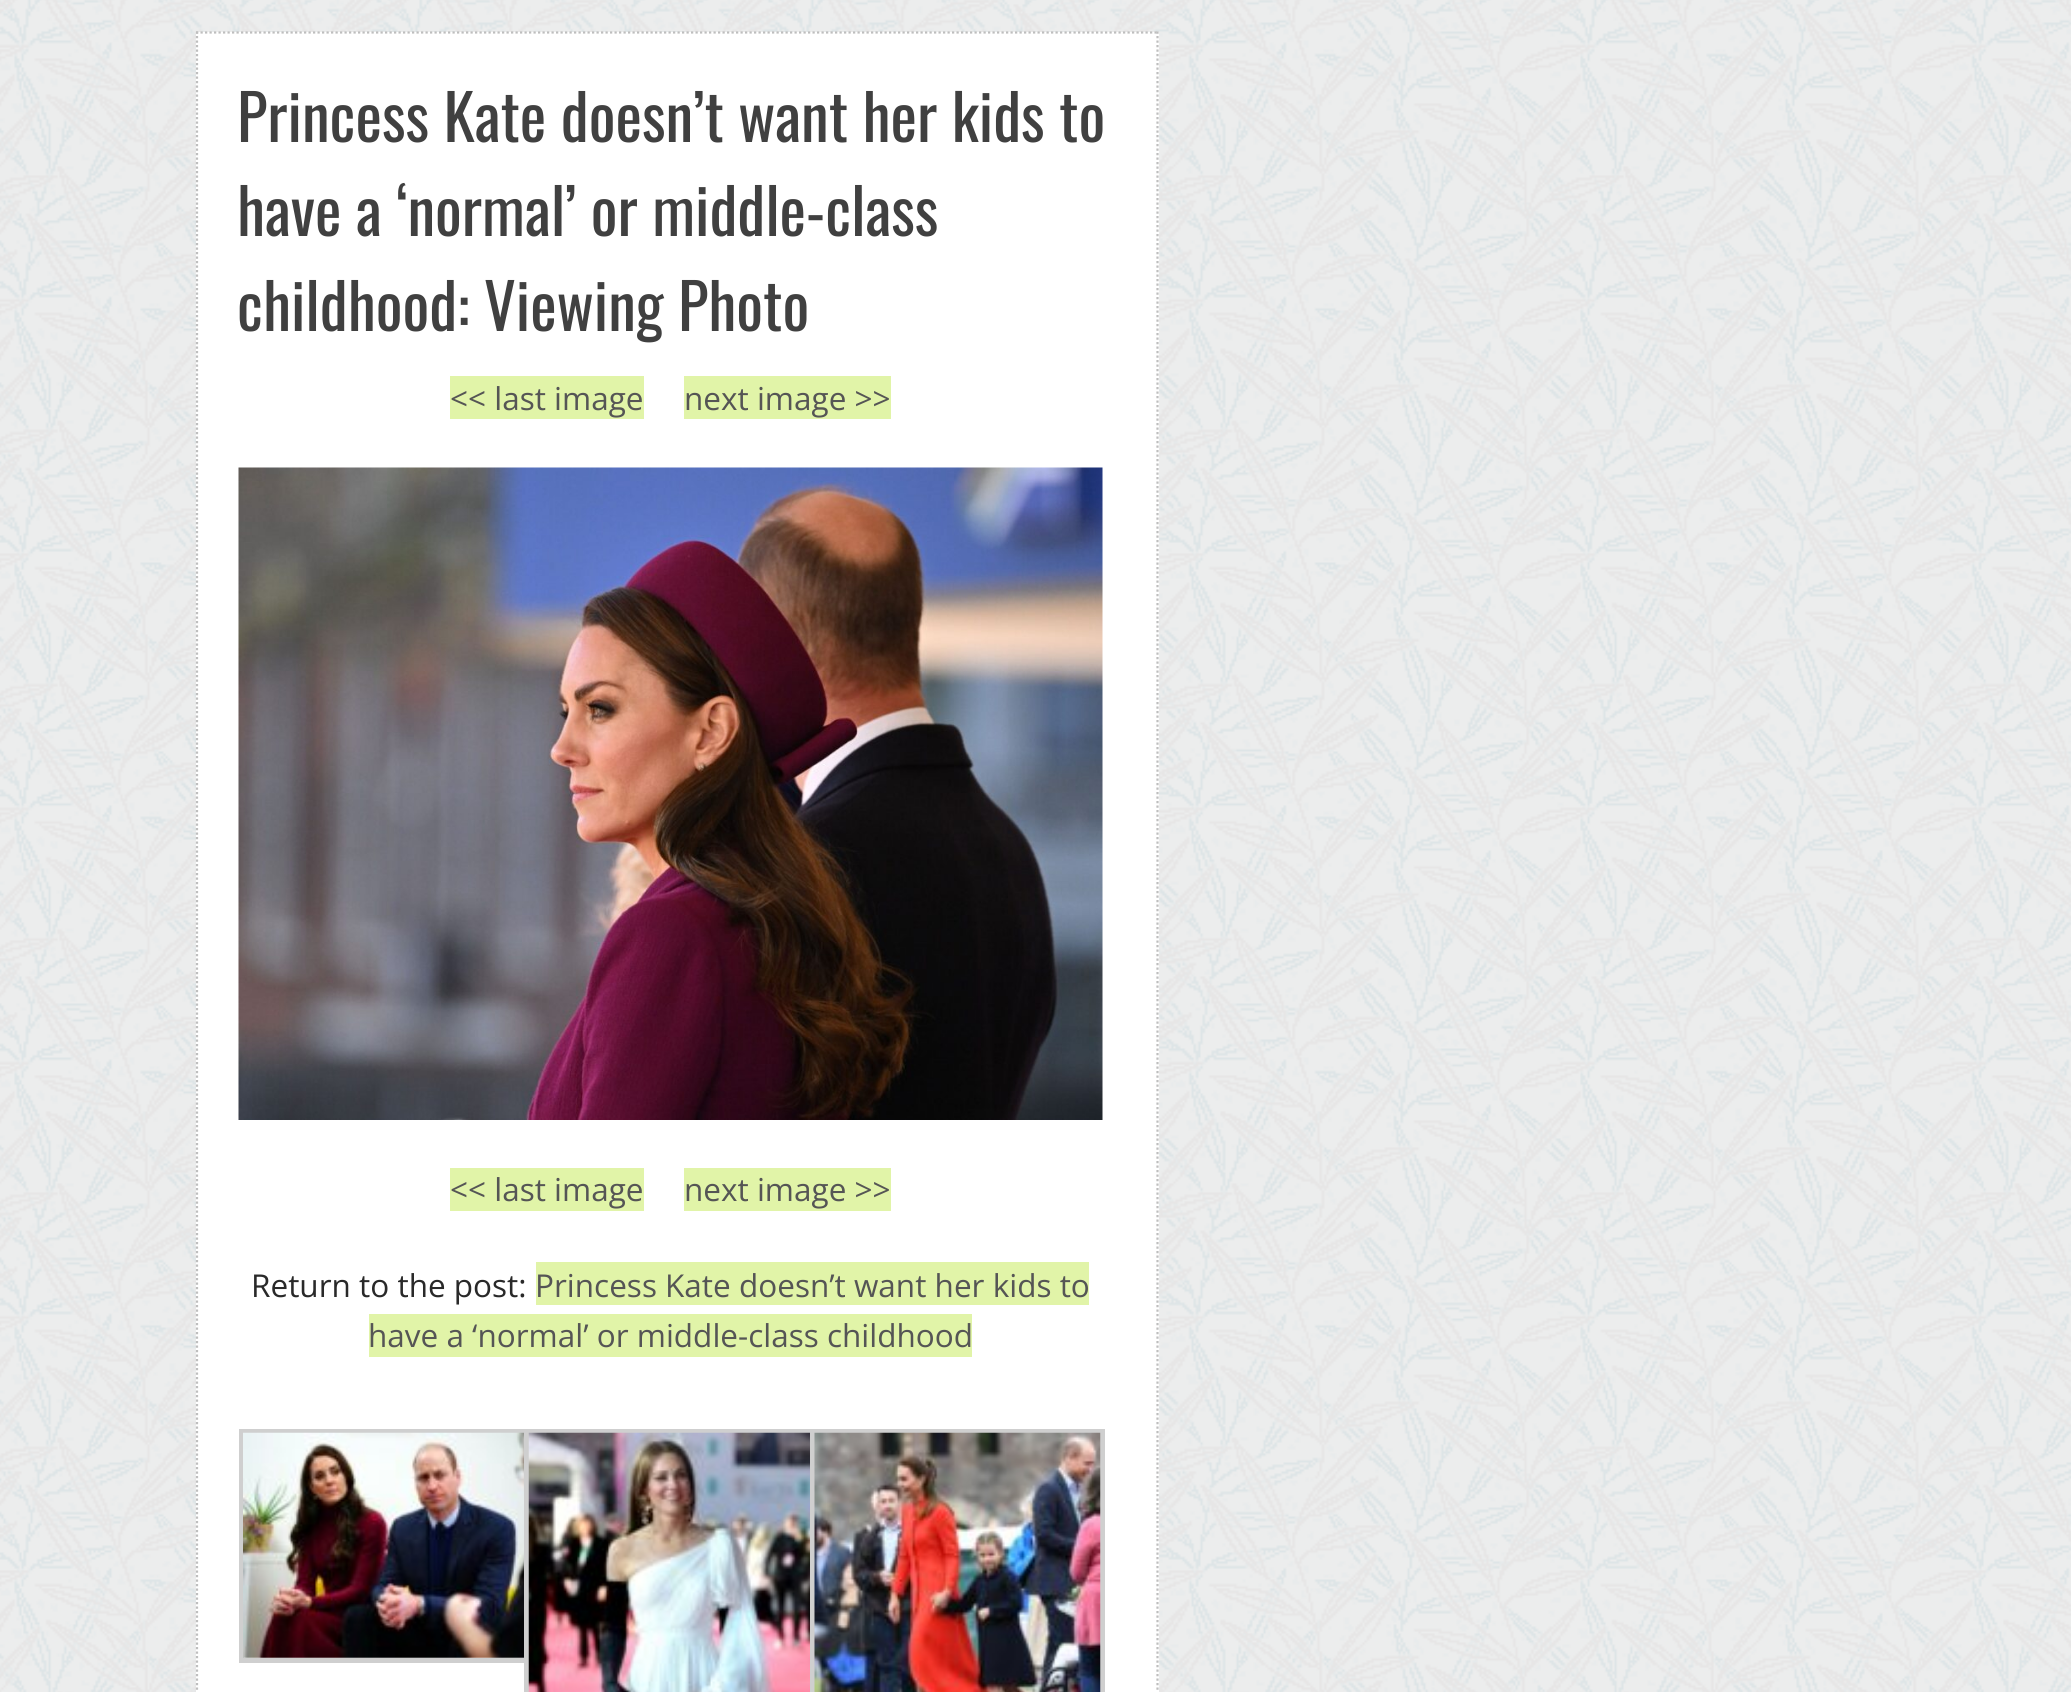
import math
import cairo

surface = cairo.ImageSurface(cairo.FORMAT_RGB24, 2071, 1692)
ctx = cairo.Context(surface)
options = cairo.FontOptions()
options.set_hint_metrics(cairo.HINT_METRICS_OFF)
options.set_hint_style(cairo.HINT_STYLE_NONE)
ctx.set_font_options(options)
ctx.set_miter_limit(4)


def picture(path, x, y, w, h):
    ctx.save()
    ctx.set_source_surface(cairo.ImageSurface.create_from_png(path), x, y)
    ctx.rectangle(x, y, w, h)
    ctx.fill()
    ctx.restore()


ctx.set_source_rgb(1, 1, 1)
ctx.paint()
picture("img1.png", 0, 0, 2071, 1692)
ctx.set_source_rgb(1, 1, 1)
ctx.rectangle(196, 32, 963, 1660)
ctx.fill()
ctx.new_path()
ctx.move_to(196, 32.5)
ctx.line_to(1159, 32.5)
ctx.set_source_rgb(0.745, 0.745, 0.745)
ctx.set_line_width(2.2)
ctx.set_dash([2.25, 2.25])
ctx.stroke()
ctx.new_path()
ctx.move_to(1157.5, 31.5)
ctx.line_to(1157.5, 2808)
ctx.stroke()
ctx.new_path()
ctx.move_to(197, 31.5)
ctx.line_to(197, 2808)
ctx.stroke()
ctx.select_font_face("Oswald")
ctx.set_font_size(63)
ctx.set_source_rgb(0.251, 0.251, 0.251)
ctx.move_to(237, 142)
ctx.show_text("Princess Kate doesn’t want her kids to")
ctx.move_to(237, 236)
ctx.show_text("have a ‘normal’ or middle-class")
ctx.move_to(237, 331)
ctx.show_text("childhood: Viewing Photo")
ctx.set_source_rgb(0.882, 0.957, 0.659)
ctx.rectangle(450, 376, 194, 43)
ctx.fill()
ctx.select_font_face("Open Sans")
ctx.set_font_size(31.5)
ctx.set_source_rgb(0.333, 0.333, 0.333)
ctx.move_to(450, 410)
ctx.show_text("<< last image")
ctx.set_source_rgb(0.882, 0.957, 0.659)
ctx.rectangle(684, 376, 207, 43)
ctx.fill()
ctx.set_source_rgb(0.333, 0.333, 0.333)
ctx.move_to(684, 410)
ctx.show_text("next image >>")
picture("img2.png", 238, 467, 865, 653)
ctx.set_source_rgb(0.882, 0.957, 0.659)
ctx.rectangle(450, 1168, 194, 43)
ctx.fill()
ctx.set_source_rgb(0.333, 0.333, 0.333)
ctx.move_to(450, 1201)
ctx.show_text("<< last image")
ctx.set_source_rgb(0.882, 0.957, 0.659)
ctx.rectangle(684, 1168, 207, 43)
ctx.fill()
ctx.set_source_rgb(0.333, 0.333, 0.333)
ctx.move_to(684, 1201)
ctx.show_text("next image >>")
ctx.set_source_rgb(0.161, 0.161, 0.161)
ctx.move_to(251, 1297)
ctx.show_text("Return to the post:")
ctx.set_source_rgb(0.882, 0.957, 0.659)
ctx.rectangle(536, 1262, 553, 43)
ctx.fill()
ctx.set_source_rgb(0.333, 0.333, 0.333)
ctx.move_to(535, 1297)
ctx.show_text("Princess Kate doesn’t want her kids to")
ctx.set_source_rgb(0.882, 0.957, 0.659)
ctx.rectangle(369, 1314, 603, 43)
ctx.fill()
ctx.set_source_rgb(0.333, 0.333, 0.333)
ctx.move_to(368, 1347)
ctx.show_text("have a ‘normal’ or middle-class childhood")
ctx.rectangle(241.5, 1431.5, 289, 229)
ctx.set_source_rgb(0.812, 0.812, 0.812)
ctx.set_line_width(5)
ctx.set_dash([])
ctx.stroke()
picture("img3.png", 243, 1432, 281, 226)
ctx.rectangle(526.5, 1431.5, 290, 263)
ctx.stroke()
picture("img4.png", 528, 1432, 282, 260)
ctx.rectangle(812.5, 1431.5, 290, 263)
ctx.stroke()
picture("img5.png", 814, 1432, 287, 260)
surface.write_to_png("page.png")
